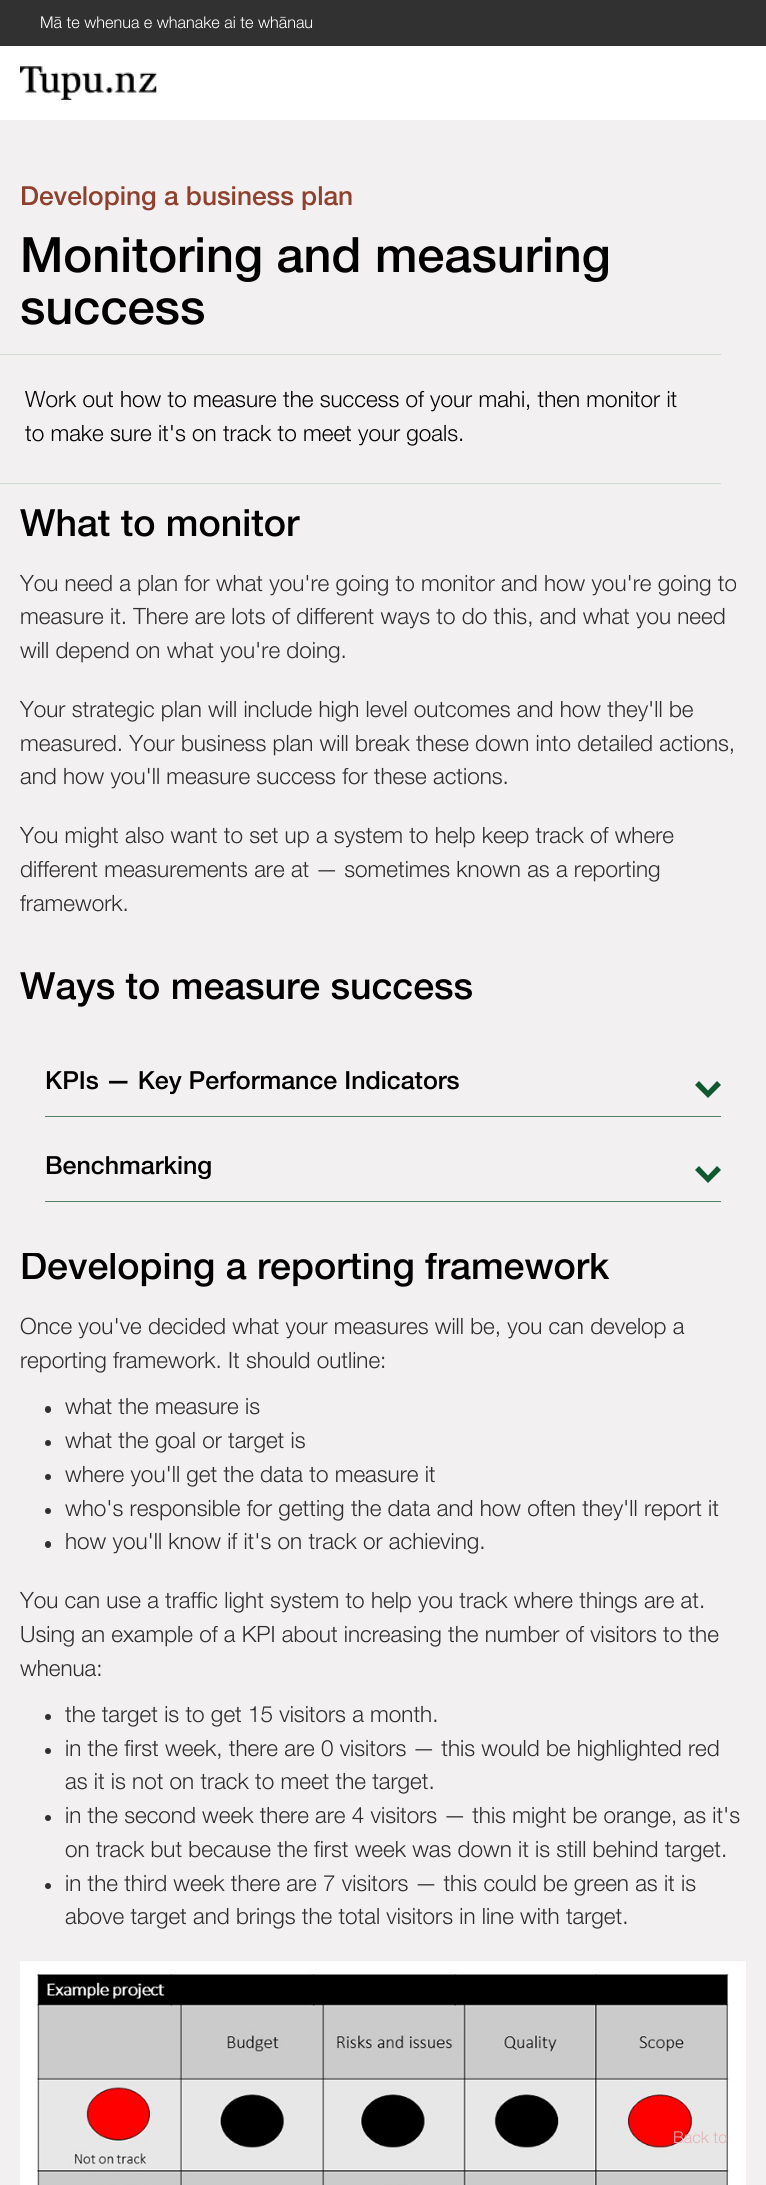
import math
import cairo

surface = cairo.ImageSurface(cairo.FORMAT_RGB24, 766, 2185)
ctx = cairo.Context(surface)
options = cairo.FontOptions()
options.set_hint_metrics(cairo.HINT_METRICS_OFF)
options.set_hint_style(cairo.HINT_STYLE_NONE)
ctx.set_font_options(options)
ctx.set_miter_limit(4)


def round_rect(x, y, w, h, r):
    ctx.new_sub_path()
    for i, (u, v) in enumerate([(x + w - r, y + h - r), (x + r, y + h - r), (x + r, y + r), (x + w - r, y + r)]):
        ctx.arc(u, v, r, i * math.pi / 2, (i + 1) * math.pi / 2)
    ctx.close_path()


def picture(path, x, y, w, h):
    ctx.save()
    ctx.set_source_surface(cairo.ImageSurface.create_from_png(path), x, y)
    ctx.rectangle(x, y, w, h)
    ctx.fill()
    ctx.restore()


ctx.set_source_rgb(0.949, 0.941, 0.941)
ctx.paint()
ctx.set_source_rgb(1, 1, 1)
ctx.rectangle(0, 46, 766, 74)
ctx.fill()
ctx.set_source_rgb(0.192, 0.192, 0.192)
ctx.rectangle(0, 0, 766, 46)
ctx.fill()
ctx.select_font_face("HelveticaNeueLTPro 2")
ctx.set_font_size(16.25)
ctx.set_source_rgb(1, 1, 1)
ctx.move_to(40, 28)
ctx.show_text("Mā te whenua e whanake ai te whānau")
picture("img1.png", 20, 66, 137, 34)
ctx.select_font_face("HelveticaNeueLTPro")
ctx.set_font_size(26.25)
ctx.set_source_rgb(0.557, 0.255, 0.18)
ctx.move_to(20, 205)
ctx.show_text("Developing a business plan")
ctx.set_font_size(48.75)
ctx.set_source_rgb(0, 0, 0)
ctx.move_to(20, 272)
ctx.show_text("Monitoring and measuring")
ctx.move_to(20, 324)
ctx.show_text("success")
ctx.set_source_rgb(0.812, 0.855, 0.816)
ctx.rectangle(0, 354, 721, 1)
ctx.fill()
ctx.rectangle(0, 483, 721, 1)
ctx.fill()
ctx.select_font_face("HelveticaNeueLTPro 2")
ctx.set_font_size(22.5)
ctx.set_source_rgb(0, 0, 0)
ctx.move_to(25, 407)
ctx.show_text("Work out how to measure the success of your mahi, then monitor it")
ctx.move_to(25, 441)
ctx.show_text("to make sure it's on track to meet your goals.")
ctx.select_font_face("HelveticaNeueLTPro")
ctx.set_font_size(37.5)
ctx.move_to(20, 536)
ctx.show_text("What to monitor")
ctx.select_font_face("HelveticaNeueLTPro 2")
ctx.set_font_size(22.5)
ctx.set_source_rgb(0.188, 0.188, 0.188)
ctx.move_to(20, 591)
ctx.show_text("You need a plan for what you're going to monitor and how you're going to")
ctx.move_to(20, 624)
ctx.show_text("measure it. There are lots of different ways to do this, and what you need")
ctx.move_to(20, 658)
ctx.show_text("will depend on what you're doing.")
ctx.move_to(20, 717)
ctx.show_text("Your strategic plan will include high level outcomes and how they'll be")
ctx.move_to(20, 751)
ctx.show_text("measured. Your business plan will break these down into detailed actions,")
ctx.move_to(20, 784)
ctx.show_text("and how you'll measure success for these actions.")
ctx.move_to(20, 843)
ctx.show_text("You might also want to set up a system to help keep track of where")
ctx.move_to(20, 877)
ctx.show_text("different measurements are at — sometimes known as a reporting")
ctx.move_to(20, 911)
ctx.show_text("framework.")
ctx.select_font_face("HelveticaNeueLTPro")
ctx.set_font_size(37.5)
ctx.set_source_rgb(0, 0, 0)
ctx.move_to(20, 999)
ctx.show_text("Ways to measure success")
ctx.set_source_rgb(0.341, 0.498, 0.388)
ctx.rectangle(45, 1116, 676, 1)
ctx.fill()
ctx.set_font_size(25)
ctx.set_source_rgb(0, 0, 0)
ctx.move_to(45, 1089)
ctx.show_text("KPIs — Key Performance Indicators")
ctx.set_source_rgb(0.063, 0.349, 0.188)
ctx.new_path()
ctx.move_to(708, 1098)
ctx.line_to(695, 1085)
ctx.line_to(699, 1081)
ctx.line_to(708, 1090.5)
ctx.line_to(717, 1081)
ctx.line_to(721, 1085)
ctx.close_path()
ctx.fill()
ctx.set_source_rgb(0.341, 0.498, 0.388)
ctx.rectangle(45, 1201, 676, 1)
ctx.fill()
ctx.set_source_rgb(0, 0, 0)
ctx.move_to(45, 1174)
ctx.show_text("Benchmarking")
ctx.set_source_rgb(0.063, 0.349, 0.188)
ctx.new_path()
ctx.move_to(708, 1183)
ctx.line_to(695, 1170)
ctx.line_to(699, 1166)
ctx.line_to(708, 1175.5)
ctx.line_to(717, 1166)
ctx.line_to(721, 1170)
ctx.close_path()
ctx.fill()
ctx.save()
ctx.rectangle(20, 1253, 726, 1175)
ctx.clip()
ctx.set_font_size(37.5)
ctx.set_source_rgb(0, 0, 0)
ctx.move_to(20, 1279)
ctx.show_text("Developing a reporting framework")
ctx.restore()
ctx.select_font_face("HelveticaNeueLTPro 2")
ctx.set_font_size(22.5)
ctx.set_source_rgb(0.188, 0.188, 0.188)
ctx.move_to(20, 1334)
ctx.show_text("Once you've decided what your measures will be, you can develop a")
ctx.move_to(20, 1368)
ctx.show_text("reporting framework. It should outline:")
round_rect(45, 1406, 6, 7, 3)
ctx.fill()
ctx.move_to(65, 1414)
ctx.show_text("what the measure is")
ctx.new_path()
ctx.arc(48, 1443, 3, 0, 2 * math.pi)
ctx.fill()
ctx.move_to(65, 1448)
ctx.show_text("what the goal or target is")
ctx.new_path()
ctx.arc(48, 1477, 3, 0, 2 * math.pi)
ctx.fill()
ctx.move_to(65, 1482)
ctx.show_text("where you'll get the data to measure it")
ctx.new_path()
ctx.arc(48, 1511, 3, 0, 2 * math.pi)
ctx.fill()
ctx.move_to(65, 1516)
ctx.show_text("who's responsible for getting the data and how often they'll report it")
round_rect(45, 1541, 6, 7, 3)
ctx.fill()
ctx.move_to(65, 1549)
ctx.show_text("how you'll know if it's on track or achieving.")
ctx.move_to(20, 1608)
ctx.show_text("You can use a traffic light system to help you track where things are at.")
ctx.move_to(20, 1642)
ctx.show_text("Using an example of a KPI about increasing the number of visitors to the")
ctx.move_to(20, 1676)
ctx.show_text("whenua:")
ctx.new_path()
ctx.arc(48, 1717, 3, 0, 2 * math.pi)
ctx.fill()
ctx.move_to(65, 1722)
ctx.show_text("the target is to get 15 visitors a month.")
ctx.new_path()
ctx.arc(48, 1751, 3, 0, 2 * math.pi)
ctx.fill()
ctx.move_to(65, 1756)
ctx.show_text("in the first week, there are 0 visitors — this would be highlighted red")
ctx.move_to(65, 1789)
ctx.show_text("as it is not on track to meet the target.")
ctx.new_path()
ctx.arc(48, 1818, 3, 0, 2 * math.pi)
ctx.fill()
ctx.move_to(65, 1823)
ctx.show_text("in the second week there are 4 visitors — this might be orange, as it's")
ctx.move_to(65, 1857)
ctx.show_text("on track but because the first week was down it is still behind target.")
ctx.new_path()
ctx.arc(48, 1886, 3, 0, 2 * math.pi)
ctx.fill()
ctx.move_to(65, 1891)
ctx.show_text("in the third week there are 7 visitors — this could be green as it is")
ctx.move_to(65, 1924)
ctx.show_text("above target and brings the total visitors in line with target.")
picture("img2.png", 20, 1961, 726, 224)
ctx.set_font_size(16.25)
ctx.set_source_rgb(0.902, 0.702, 0.702)
ctx.move_to(673, 2143)
ctx.show_text("Back to")
surface.write_to_png("page.png")
